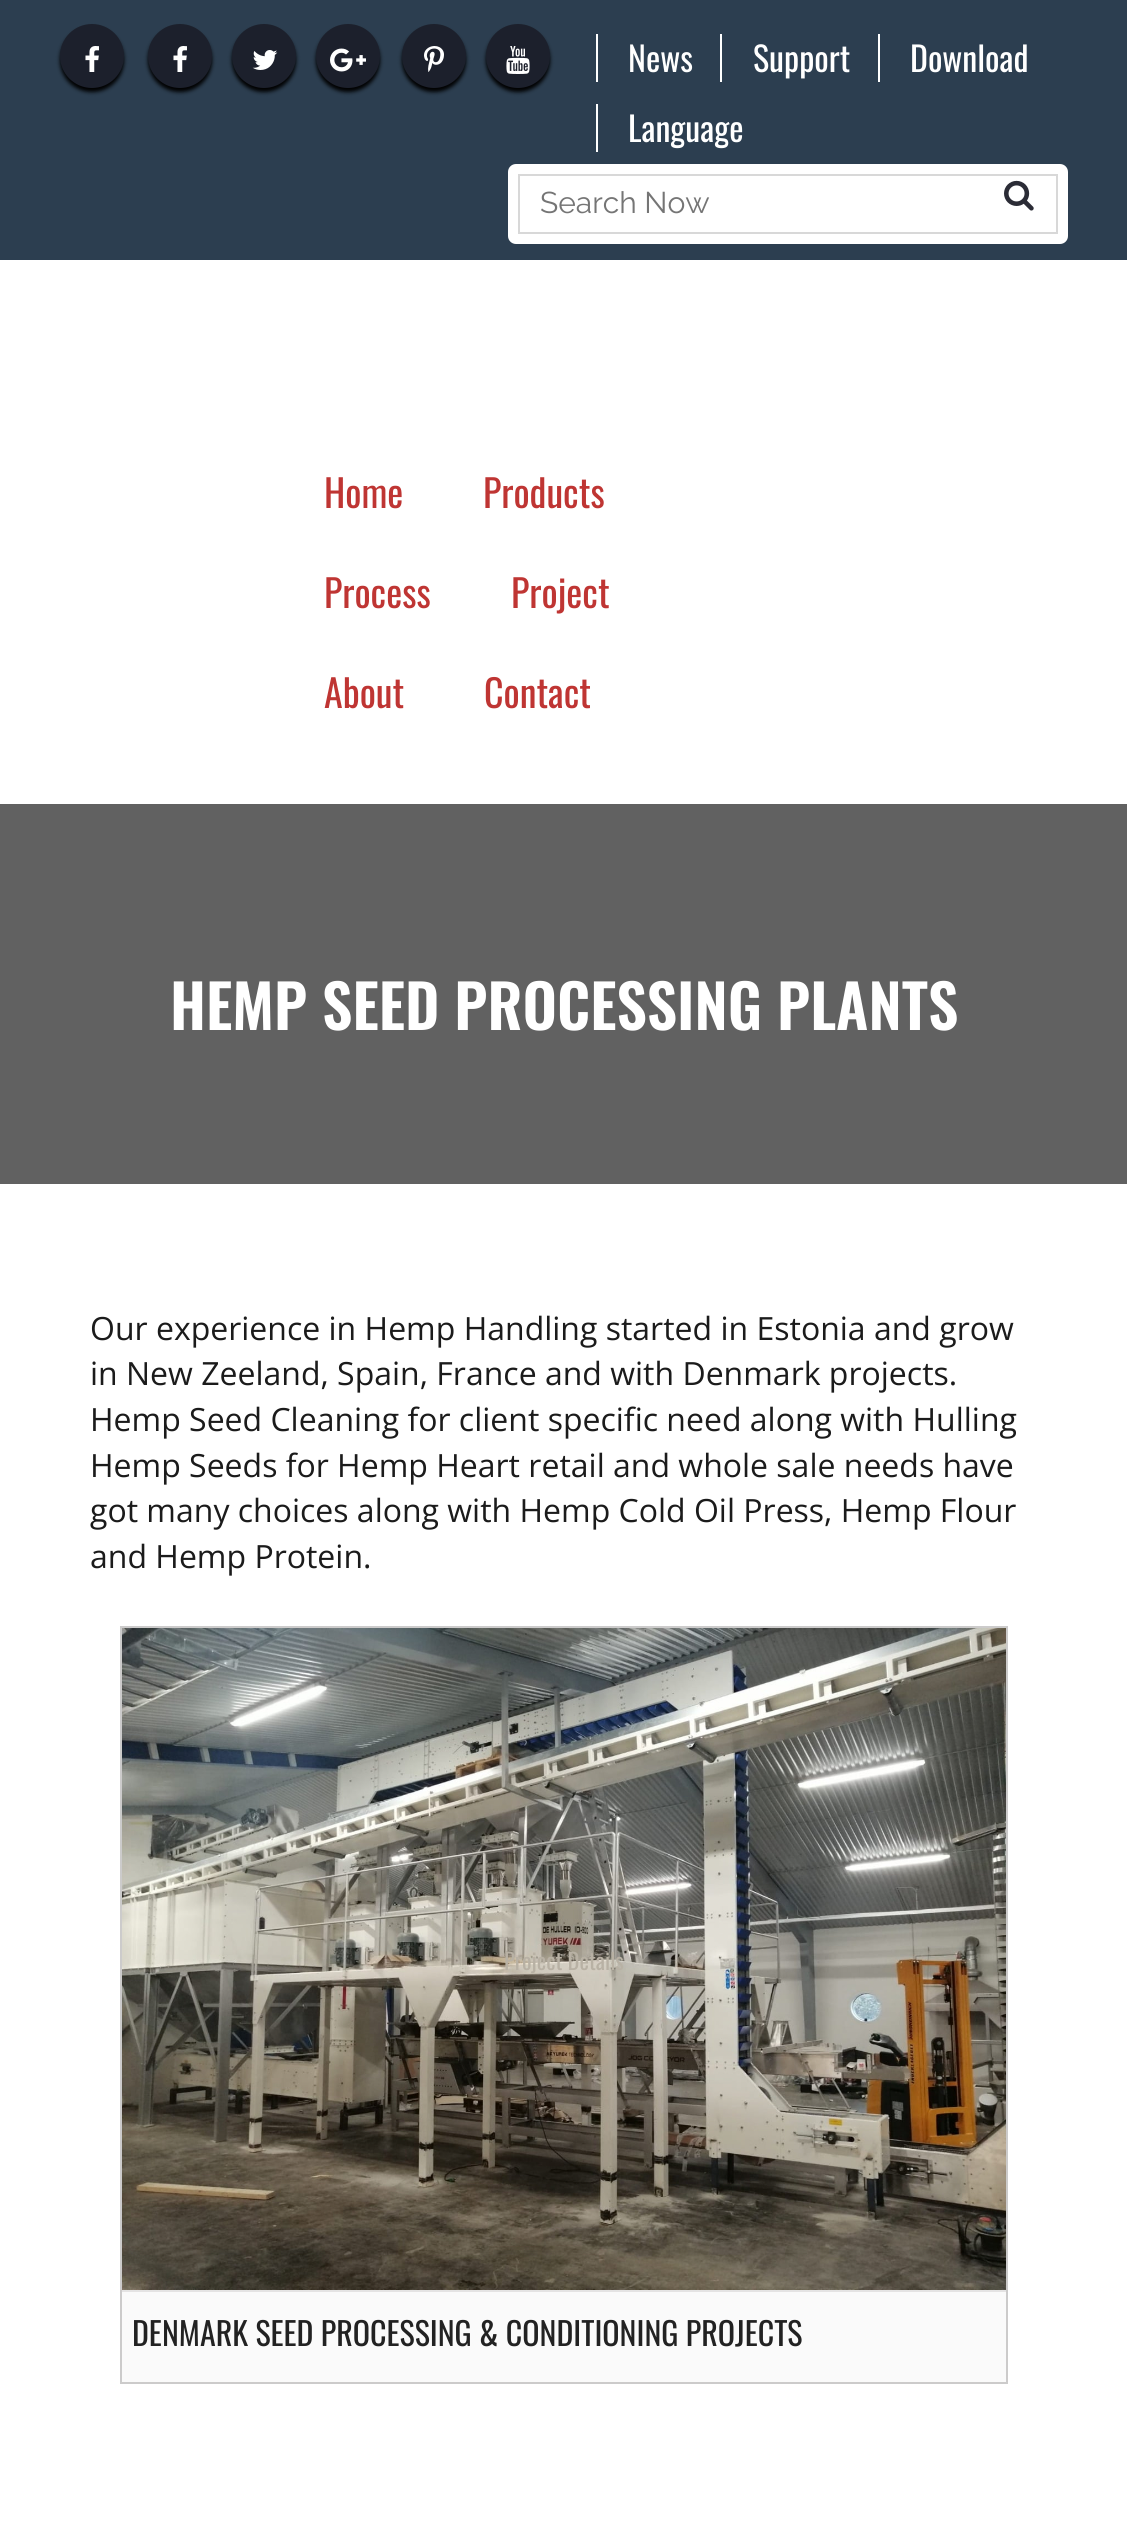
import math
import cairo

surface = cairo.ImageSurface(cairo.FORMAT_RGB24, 1127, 2523)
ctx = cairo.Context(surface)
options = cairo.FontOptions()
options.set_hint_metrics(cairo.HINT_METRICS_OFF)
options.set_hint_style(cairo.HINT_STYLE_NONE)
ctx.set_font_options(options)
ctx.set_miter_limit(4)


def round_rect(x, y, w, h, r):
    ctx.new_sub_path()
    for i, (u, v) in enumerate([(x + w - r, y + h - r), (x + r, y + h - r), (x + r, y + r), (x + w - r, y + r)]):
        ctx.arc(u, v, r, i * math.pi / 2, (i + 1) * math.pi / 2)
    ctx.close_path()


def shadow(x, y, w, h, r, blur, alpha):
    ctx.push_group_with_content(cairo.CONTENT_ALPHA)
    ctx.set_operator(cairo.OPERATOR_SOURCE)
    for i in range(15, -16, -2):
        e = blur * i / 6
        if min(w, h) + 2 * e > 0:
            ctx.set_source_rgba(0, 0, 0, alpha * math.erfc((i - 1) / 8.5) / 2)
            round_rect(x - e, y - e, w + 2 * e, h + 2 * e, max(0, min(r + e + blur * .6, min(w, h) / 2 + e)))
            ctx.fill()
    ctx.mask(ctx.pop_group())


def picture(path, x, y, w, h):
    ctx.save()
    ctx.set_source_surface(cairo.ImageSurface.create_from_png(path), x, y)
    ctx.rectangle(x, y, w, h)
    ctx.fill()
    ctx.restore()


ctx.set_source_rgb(1, 1, 1)
ctx.paint()
ctx.set_source_rgb(0.173, 0.243, 0.314)
ctx.rectangle(0, 0, 1127, 260)
ctx.fill()
ctx.set_source_rgb(0, 0, 0)
shadow(60, 28, 64, 64, 32, 2, 1)
ctx.set_source_rgb(0.11, 0.125, 0.173)
ctx.arc(92, 56, 31, 0, 2 * math.pi)
ctx.fill_preserve()
ctx.stroke()
picture("img1.png", 85, 46, 14, 26)
ctx.set_source_rgb(0, 0, 0)
shadow(148, 28, 64, 64, 32, 2, 1)
ctx.set_source_rgb(0.11, 0.125, 0.173)
ctx.arc(180, 56, 31, 0, 2 * math.pi)
ctx.fill_preserve()
ctx.stroke()
picture("img1.png", 173, 46, 14, 26)
ctx.set_source_rgb(0, 0, 0)
shadow(232, 28, 64, 64, 32, 2, 1)
ctx.set_source_rgb(0.11, 0.125, 0.173)
ctx.arc(264, 56, 31, 0, 2 * math.pi)
ctx.fill_preserve()
ctx.stroke()
picture("img2.png", 252, 50, 26, 20)
ctx.set_source_rgb(0, 0, 0)
shadow(316, 28, 64, 64, 32, 2, 1)
ctx.set_source_rgb(0.11, 0.125, 0.173)
ctx.arc(348, 56, 31, 0, 2 * math.pi)
ctx.fill_preserve()
ctx.stroke()
picture("img3.png", 330, 48, 36, 24)
ctx.set_source_rgb(0, 0, 0)
shadow(402, 28, 64, 64, 32, 2, 1)
ctx.set_source_rgb(0.11, 0.125, 0.173)
ctx.arc(434, 56, 31, 0, 2 * math.pi)
ctx.fill_preserve()
ctx.stroke()
picture("img4.png", 424, 46, 20, 26)
ctx.set_source_rgb(0, 0, 0)
shadow(486, 28, 64, 64, 32, 2, 1)
ctx.set_source_rgb(0.11, 0.125, 0.173)
ctx.arc(518, 56, 31, 0, 2 * math.pi)
ctx.fill_preserve()
ctx.stroke()
picture("img5.png", 506, 46, 24, 28)
ctx.set_source_rgb(1, 1, 1)
ctx.rectangle(596, 34, 2, 48)
ctx.fill()
ctx.select_font_face("Oswald")
ctx.set_font_size(34)
ctx.move_to(628, 72)
ctx.show_text("News")
ctx.rectangle(720, 34, 2, 48)
ctx.fill()
ctx.move_to(753, 72)
ctx.show_text("Support")
ctx.rectangle(878, 34, 2, 48)
ctx.fill()
ctx.move_to(910, 72)
ctx.show_text("Download")
ctx.rectangle(596, 104, 2, 48)
ctx.fill()
ctx.move_to(628, 142)
ctx.show_text("Language")
round_rect(508, 164, 560, 80, 8)
ctx.fill()
ctx.rectangle(519, 175, 538, 58)
ctx.set_source_rgb(0.847, 0.847, 0.847)
ctx.stroke()
ctx.select_font_face("Raleway")
ctx.set_font_size(30)
ctx.set_source_rgb(0.459, 0.459, 0.459)
ctx.move_to(540, 213)
ctx.show_text("Search Now")
picture("img6.png", 1004, 180, 30, 31)
ctx.select_font_face("Oswald")
ctx.set_font_size(38)
ctx.set_source_rgb(0.749, 0.208, 0.2)
ctx.move_to(324, 508)
ctx.show_text("Home")
ctx.move_to(483, 508)
ctx.show_text("Products")
ctx.move_to(324, 608)
ctx.show_text("Process")
ctx.move_to(511, 608)
ctx.show_text("Project")
ctx.move_to(324, 708)
ctx.show_text("About")
ctx.move_to(484, 708)
ctx.show_text("Contact")
ctx.set_source_rgb(0.38, 0.38, 0.38)
ctx.rectangle(0, 804, 1127, 380)
ctx.fill()
ctx.select_font_face("Oswald SemiBold")
ctx.set_font_size(60)
ctx.set_source_rgb(1, 1, 1)
ctx.move_to(170, 1030)
ctx.show_text("HEMP SEED PROCESSING PLANTS")
ctx.select_font_face("Open Sans")
ctx.set_font_size(32)
ctx.set_source_rgb(0.106, 0.106, 0.106)
ctx.move_to(90, 1340)
ctx.show_text("Our experience in Hemp Handling started in Estonia and grow")
ctx.move_to(90, 1385)
ctx.show_text("in New Zeeland, Spain, France and with Denmark projects.")
ctx.move_to(90, 1431)
ctx.show_text("Hemp Seed Cleaning for client specific need along with Hulling")
ctx.move_to(90, 1477)
ctx.show_text("Hemp Seeds for Hemp Heart retail and whole sale needs have")
ctx.move_to(90, 1522)
ctx.show_text("got many choices along with Hemp Cold Oil Press, Hemp Flour")
ctx.move_to(90, 1568)
ctx.show_text("and Hemp Protein.")
ctx.rectangle(121, 1627, 886, 756)
ctx.set_source_rgb(0.8, 0.796, 0.796)
ctx.stroke()
ctx.set_source_rgb(0.894, 0.89, 0.89)
ctx.rectangle(122, 2290, 884, 2)
ctx.fill()
picture("img7.png", 122, 1628, 884, 662)
ctx.select_font_face("Oswald")
ctx.set_font_size(22.5)
ctx.set_source_rgb(0.722, 0.694, 0.643)
ctx.move_to(504, 1970)
ctx.show_text("Project Details")
ctx.set_source_rgb(0.98, 0.98, 0.98)
ctx.rectangle(122, 2292, 884, 90)
ctx.fill()
ctx.set_font_size(32)
ctx.set_source_rgb(0.133, 0.133, 0.133)
ctx.move_to(132, 2346)
ctx.show_text("DENMARK SEED PROCESSING & CONDITIONING PROJECTS")
surface.write_to_png("page.png")
